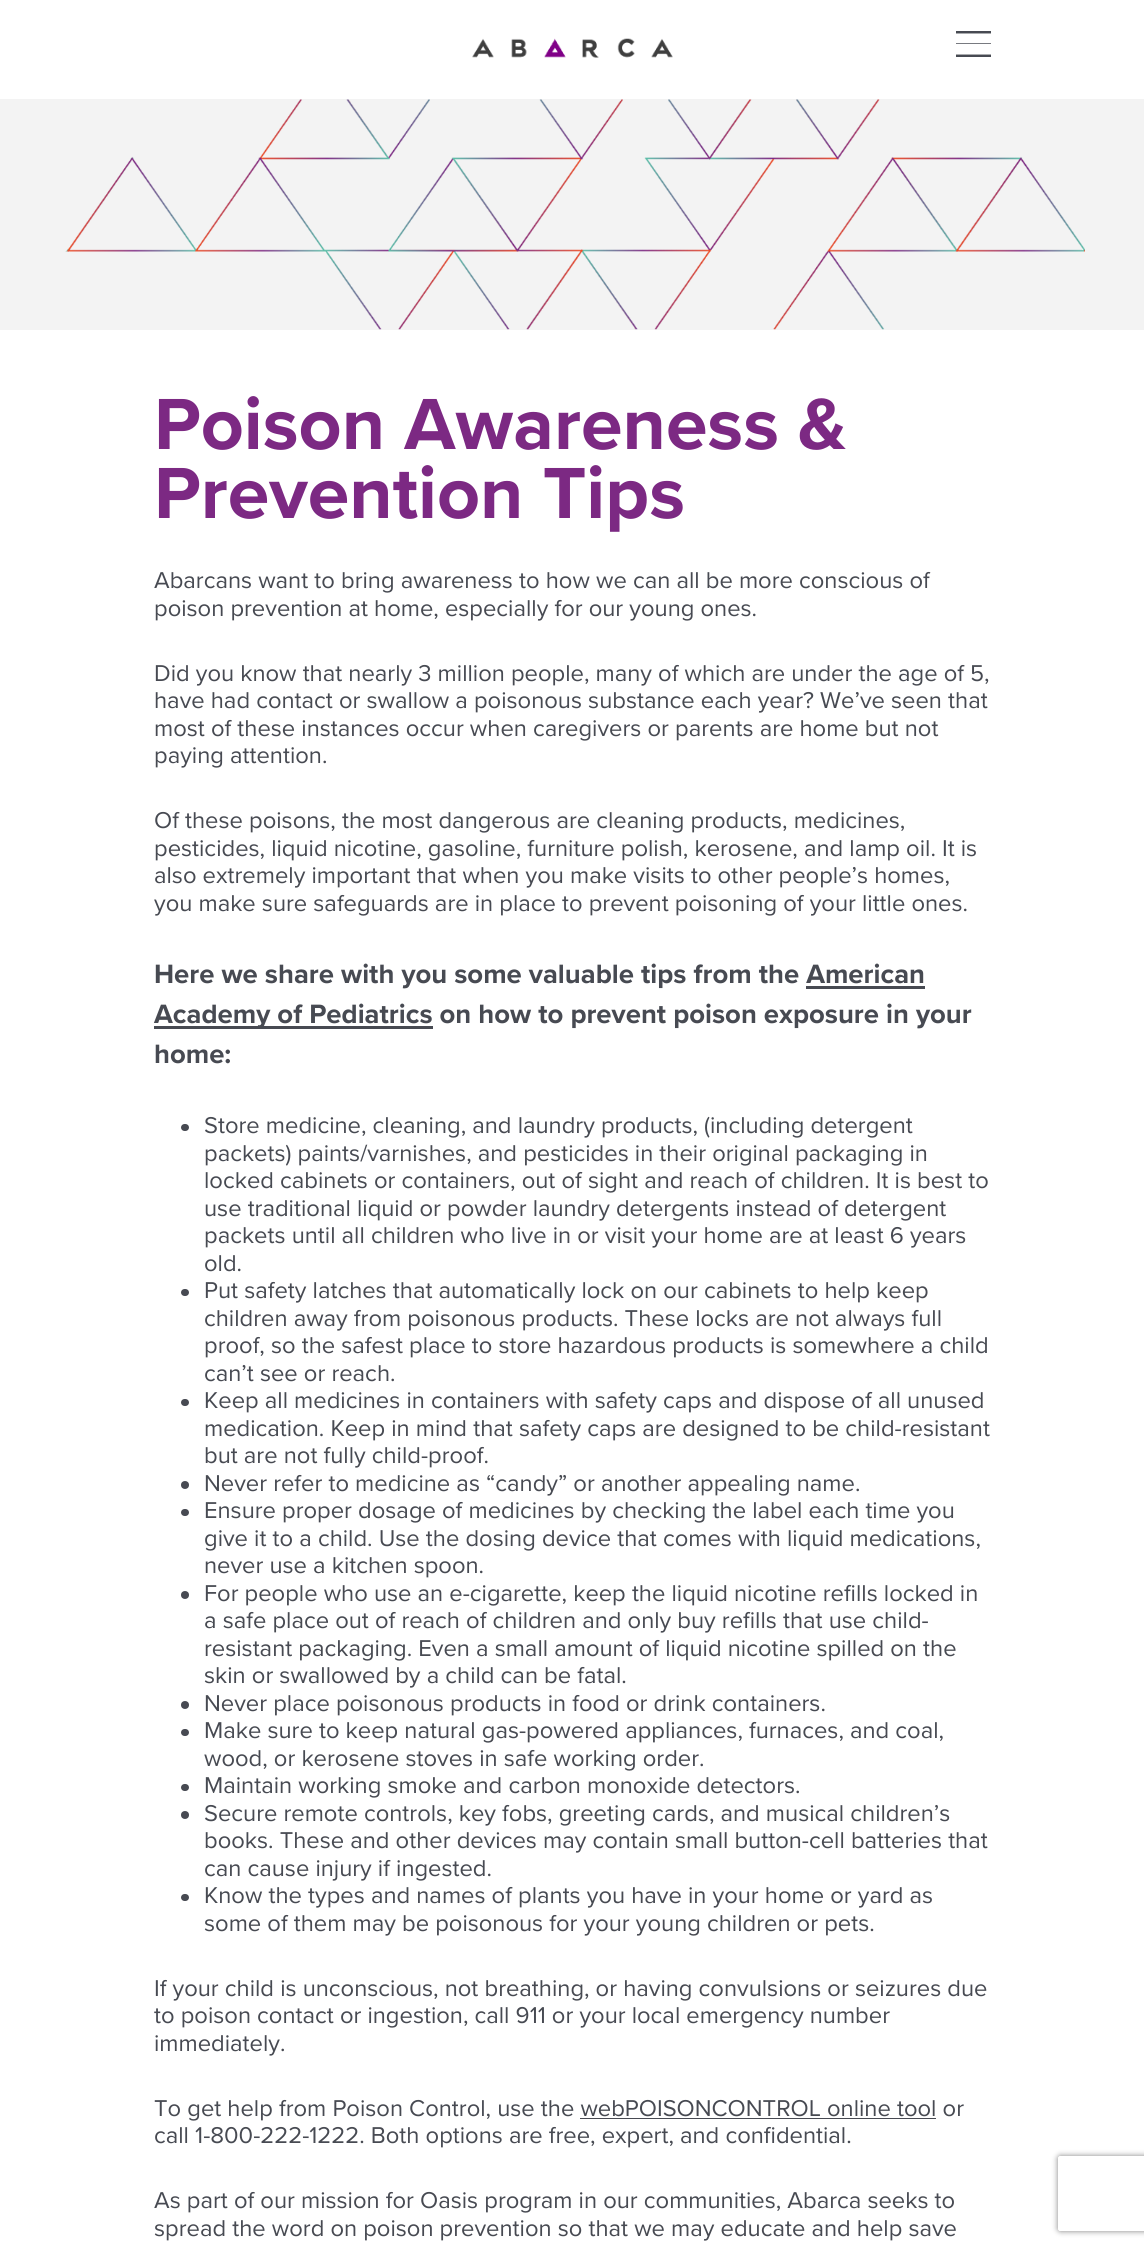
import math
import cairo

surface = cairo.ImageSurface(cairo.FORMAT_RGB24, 1144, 2248)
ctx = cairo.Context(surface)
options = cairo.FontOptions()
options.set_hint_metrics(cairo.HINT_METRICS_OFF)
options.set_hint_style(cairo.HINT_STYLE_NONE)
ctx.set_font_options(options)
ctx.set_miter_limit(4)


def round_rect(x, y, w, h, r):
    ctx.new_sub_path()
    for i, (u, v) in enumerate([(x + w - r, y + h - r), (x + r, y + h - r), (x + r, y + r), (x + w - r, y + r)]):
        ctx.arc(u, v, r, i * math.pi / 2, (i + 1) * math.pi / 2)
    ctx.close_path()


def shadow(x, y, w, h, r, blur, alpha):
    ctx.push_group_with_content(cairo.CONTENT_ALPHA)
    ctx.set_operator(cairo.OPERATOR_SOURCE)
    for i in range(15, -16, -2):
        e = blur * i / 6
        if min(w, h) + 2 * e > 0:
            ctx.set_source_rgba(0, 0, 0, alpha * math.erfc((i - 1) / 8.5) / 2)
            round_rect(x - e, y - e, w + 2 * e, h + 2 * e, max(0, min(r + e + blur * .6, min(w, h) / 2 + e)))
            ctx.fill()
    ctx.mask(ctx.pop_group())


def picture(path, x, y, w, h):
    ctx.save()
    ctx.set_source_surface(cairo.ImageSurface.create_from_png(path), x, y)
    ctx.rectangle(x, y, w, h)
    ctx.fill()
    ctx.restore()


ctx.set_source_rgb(1, 1, 1)
ctx.paint()
picture("img1.png", 472, 38, 201, 20)
ctx.set_source_rgb(0.278, 0.29, 0.322)
ctx.rectangle(956, 31, 35, 2)
ctx.fill()
ctx.set_source_rgb(0.663, 0.671, 0.682)
ctx.rectangle(956, 33, 35, 1)
ctx.fill()
ctx.set_source_rgb(0.471, 0.478, 0.502)
ctx.rectangle(956, 43, 35, 1)
ctx.fill()
ctx.set_source_rgb(0.278, 0.29, 0.322)
ctx.rectangle(956, 55, 35, 2)
ctx.fill()
ctx.set_source_rgb(0.663, 0.671, 0.682)
ctx.rectangle(956, 54, 35, 1)
ctx.fill()
ctx.set_source_rgb(0.953, 0.953, 0.953)
ctx.rectangle(0, 99, 1144, 231)
ctx.fill()
picture("img2.png", 65, 99, 1020, 231)
ctx.select_font_face("Proxima Nova", cairo.FONT_SLANT_NORMAL, cairo.FONT_WEIGHT_BOLD)
ctx.set_font_size(75)
ctx.set_source_rgb(0.486, 0.161, 0.514)
ctx.move_to(154, 449)
ctx.show_text("Poison Awareness &")
ctx.move_to(154, 518)
ctx.show_text("Prevention Tips")
ctx.select_font_face("Proxima Nova")
ctx.set_font_size(23.75)
ctx.set_source_rgb(0.278, 0.29, 0.322)
ctx.move_to(154, 588)
ctx.show_text("Abarcans want to bring awareness to how we can all be more conscious of")
ctx.move_to(154, 616)
ctx.show_text("poison prevention at home, especially for our young ones.")
ctx.move_to(154, 681)
ctx.show_text("Did you know that nearly 3 million people, many of which are under the age of 5,")
ctx.move_to(154, 708)
ctx.show_text("have had contact or swallow a poisonous substance each year? We’ve seen that")
ctx.move_to(154, 736)
ctx.show_text("most of these instances occur when caregivers or parents are home but not")
ctx.move_to(154, 763)
ctx.show_text("paying attention.")
ctx.move_to(154, 828)
ctx.show_text("Of these poisons, the most dangerous are cleaning products, medicines,")
ctx.move_to(154, 856)
ctx.show_text("pesticides, liquid nicotine, gasoline, furniture polish, kerosene, and lamp oil. It is")
ctx.move_to(154, 883)
ctx.show_text("also extremely important that when you make visits to other people’s homes,")
ctx.move_to(154, 911)
ctx.show_text("you make sure safeguards are in place to prevent poisoning of your little ones.")
ctx.select_font_face("Proxima Nova", cairo.FONT_SLANT_NORMAL, cairo.FONT_WEIGHT_BOLD)
ctx.set_font_size(27.5)
ctx.move_to(154, 983)
ctx.show_text("Here we share with you some valuable tips from the American")
ctx.rectangle(806, 986, 119, 3)
ctx.fill()
ctx.rectangle(154, 1026, 279, 3)
ctx.fill()
ctx.move_to(154, 1023)
ctx.show_text("Academy of Pediatrics on how to prevent poison exposure in your")
ctx.move_to(154, 1063)
ctx.show_text("home:")
round_rect(181, 1124, 8, 7, 3.5)
ctx.fill()
ctx.select_font_face("Proxima Nova")
ctx.set_font_size(23.75)
ctx.move_to(204, 1133)
ctx.show_text("Store medicine, cleaning, and laundry products, (including detergent")
ctx.move_to(204, 1161)
ctx.show_text("packets) paints/varnishes, and pesticides in their original packaging in")
ctx.move_to(204, 1188)
ctx.show_text("locked cabinets or containers, out of sight and reach of children. It is best to")
ctx.move_to(204, 1216)
ctx.show_text("use traditional liquid or powder laundry detergents instead of detergent")
ctx.move_to(204, 1243)
ctx.show_text("packets until all children who live in or visit your home are at least 6 years")
ctx.move_to(204, 1271)
ctx.show_text("old.")
round_rect(181, 1289, 8, 7, 3.5)
ctx.fill()
ctx.move_to(204, 1298)
ctx.show_text("Put safety latches that automatically lock on our cabinets to help keep")
ctx.move_to(204, 1326)
ctx.show_text("children away from poisonous products. These locks are not always full")
ctx.move_to(204, 1353)
ctx.show_text("proof, so the safest place to store hazardous products is somewhere a child")
ctx.move_to(204, 1381)
ctx.show_text("can’t see or reach.")
round_rect(181, 1399, 8, 7, 3.5)
ctx.fill()
ctx.move_to(204, 1408)
ctx.show_text("Keep all medicines in containers with safety caps and dispose of all unused")
ctx.move_to(204, 1436)
ctx.show_text("medication. Keep in mind that safety caps are designed to be child-resistant")
ctx.move_to(204, 1463)
ctx.show_text("but are not fully child-proof.")
ctx.new_path()
ctx.arc(185, 1485, 4, 0, 2 * math.pi)
ctx.fill()
ctx.move_to(204, 1491)
ctx.show_text("Never refer to medicine as “candy” or another appealing name.")
round_rect(181, 1509, 8, 7, 3.5)
ctx.fill()
ctx.move_to(204, 1518)
ctx.show_text("Ensure proper dosage of medicines by checking the label each time you")
ctx.move_to(204, 1546)
ctx.show_text("give it to a child. Use the dosing device that comes with liquid medications,")
ctx.move_to(204, 1573)
ctx.show_text("never use a kitchen spoon.")
ctx.new_path()
ctx.arc(185, 1595, 4, 0, 2 * math.pi)
ctx.fill()
ctx.move_to(204, 1601)
ctx.show_text("For people who use an e-cigarette, keep the liquid nicotine refills locked in")
ctx.move_to(204, 1628)
ctx.show_text("a safe place out of reach of children and only buy refills that use child-")
ctx.move_to(204, 1656)
ctx.show_text("resistant packaging. Even a small amount of liquid nicotine spilled on the")
ctx.move_to(204, 1683)
ctx.show_text("skin or swallowed by a child can be fatal.")
ctx.new_path()
ctx.arc(185, 1705, 4, 0, 2 * math.pi)
ctx.fill()
ctx.move_to(204, 1711)
ctx.show_text("Never place poisonous products in food or drink containers.")
round_rect(181, 1729, 8, 7, 3.5)
ctx.fill()
ctx.move_to(204, 1738)
ctx.show_text("Make sure to keep natural gas-powered appliances, furnaces, and coal,")
ctx.move_to(204, 1766)
ctx.show_text("wood, or kerosene stoves in safe working order.")
round_rect(181, 1784, 8, 7, 3.5)
ctx.fill()
ctx.move_to(204, 1793)
ctx.show_text("Maintain working smoke and carbon monoxide detectors.")
ctx.new_path()
ctx.arc(185, 1815, 4, 0, 2 * math.pi)
ctx.fill()
ctx.move_to(204, 1821)
ctx.show_text("Secure remote controls, key fobs, greeting cards, and musical children’s")
ctx.move_to(204, 1848)
ctx.show_text("books. These and other devices may contain small button-cell batteries that")
ctx.move_to(204, 1876)
ctx.show_text("can cause injury if ingested.")
round_rect(181, 1894, 8, 7, 3.5)
ctx.fill()
ctx.move_to(204, 1903)
ctx.show_text("Know the types and names of plants you have in your home or yard as")
ctx.move_to(204, 1931)
ctx.show_text("some of them may be poisonous for your young children or pets.")
ctx.move_to(154, 1996)
ctx.show_text("If your child is unconscious, not breathing, or having convulsions or seizures due")
ctx.move_to(154, 2023)
ctx.show_text("to poison contact or ingestion, call 911 or your local emergency number")
ctx.move_to(154, 2051)
ctx.show_text("immediately.")
ctx.move_to(154, 2116)
ctx.show_text("To get help from Poison Control, use the webPOISONCONTROL online tool or")
ctx.rectangle(580, 2118, 356, 1)
ctx.fill()
ctx.move_to(154, 2143)
ctx.show_text("call 1-800-222-1222. Both options are free, expert, and confidential.")
ctx.move_to(154, 2208)
ctx.show_text("As part of our mission for Oasis program in our communities, Abarca seeks to")
ctx.move_to(154, 2236)
ctx.show_text("spread the word on poison prevention so that we may educate and help save")
ctx.save()
ctx.set_fill_rule(cairo.FILL_RULE_EVEN_ODD)
ctx.new_path()
ctx.move_to(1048, 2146)
ctx.line_to(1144, 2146)
ctx.line_to(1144, 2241)
ctx.line_to(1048, 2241)
ctx.close_path()
ctx.move_to(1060.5, 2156)
ctx.line_to(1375.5, 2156)
ctx.curve_to(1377, 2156, 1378, 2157, 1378, 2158.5)
ctx.line_to(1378, 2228.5)
ctx.curve_to(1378, 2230, 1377, 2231, 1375.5, 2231)
ctx.line_to(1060.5, 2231)
ctx.curve_to(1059, 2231, 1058, 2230, 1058, 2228.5)
ctx.line_to(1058, 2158.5)
ctx.curve_to(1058, 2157, 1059, 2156, 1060.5, 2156)
ctx.close_path()
ctx.clip()
ctx.set_source_rgb(0.502, 0.502, 0.502)
shadow(1058, 2156, 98, 75, 2.5, 3, 1)
ctx.restore()
surface.write_to_png("page.png")
